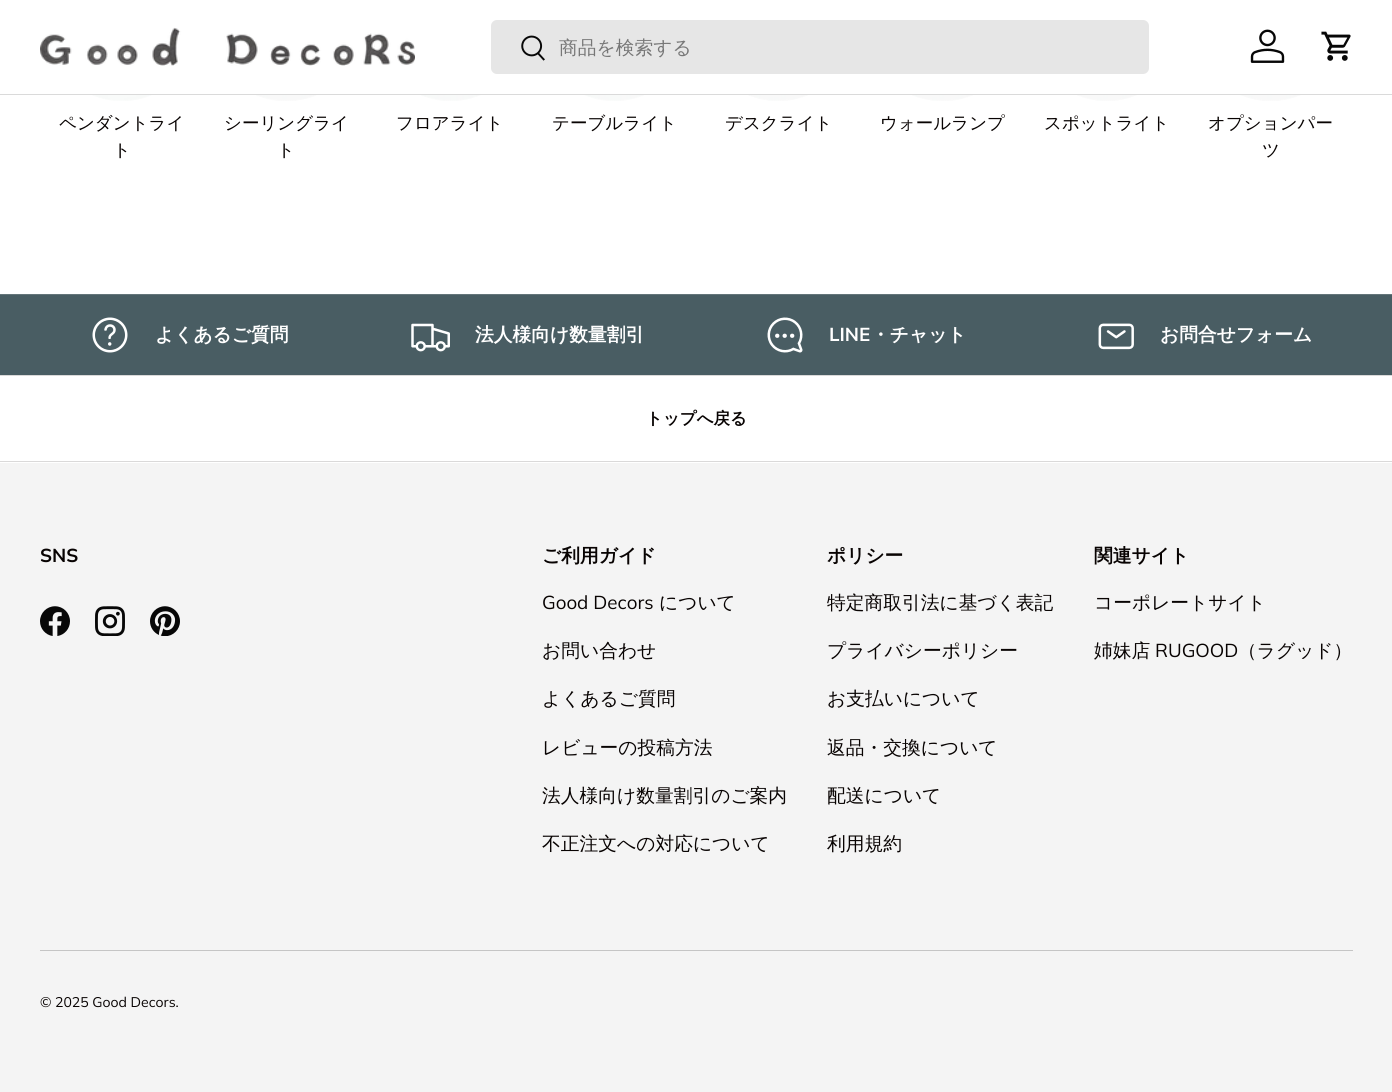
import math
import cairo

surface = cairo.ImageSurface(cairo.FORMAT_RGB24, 1392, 1092)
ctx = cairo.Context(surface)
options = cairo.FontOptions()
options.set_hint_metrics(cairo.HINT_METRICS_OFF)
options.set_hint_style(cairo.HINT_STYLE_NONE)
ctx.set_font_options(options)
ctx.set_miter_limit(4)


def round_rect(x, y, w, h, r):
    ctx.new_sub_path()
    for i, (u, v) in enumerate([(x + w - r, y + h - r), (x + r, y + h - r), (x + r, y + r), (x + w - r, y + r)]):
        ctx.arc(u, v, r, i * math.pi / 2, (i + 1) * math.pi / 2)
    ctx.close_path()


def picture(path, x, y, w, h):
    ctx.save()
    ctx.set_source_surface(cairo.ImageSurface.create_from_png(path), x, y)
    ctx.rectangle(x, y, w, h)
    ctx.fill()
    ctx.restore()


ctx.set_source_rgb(1, 1, 1)
ctx.paint()
ctx.set_source_rgb(0.855, 0.855, 0.855)
ctx.rectangle(0, 94, 1392, 1)
ctx.fill()
picture("img1.png", 40, 27, 375, 39)
ctx.set_source_rgb(0.902, 0.902, 0.902)
round_rect(491, 20, 658, 54, 6)
ctx.fill()
picture("img2.png", 521, 35, 24, 26)
ctx.select_font_face("WenQuanYi Zen Hei Medium")
ctx.set_font_size(18.75)
ctx.set_source_rgb(0.467, 0.467, 0.467)
ctx.move_to(559, 54)
ctx.show_text("商品を検索する")
picture("img3.png", 1250, 29, 35, 34)
picture("img4.png", 1321, 31, 30, 30)
picture("img5.png", 91, 95, 62, 6)
ctx.set_font_size(17.5)
ctx.set_source_rgb(0.035, 0.012, 0.008)
ctx.move_to(59, 129)
ctx.show_text("ペンダントライ")
ctx.move_to(113, 156)
ctx.show_text("ト")
picture("img6.png", 255, 95, 63, 6)
ctx.move_to(224, 129)
ctx.show_text("シーリングライ")
ctx.move_to(277, 156)
ctx.show_text("ト")
picture("img7.png", 420, 95, 61, 6)
ctx.move_to(396, 129)
ctx.show_text("フロアライト")
picture("img8.png", 584, 95, 61, 6)
ctx.move_to(552, 129)
ctx.show_text("テーブルライト")
picture("img9.png", 747, 95, 62, 6)
ctx.move_to(725, 129)
ctx.show_text("デスクライト")
picture("img10.png", 911, 95, 63, 6)
ctx.move_to(880, 129)
ctx.show_text("ウォールランプ")
picture("img11.png", 1076, 95, 62, 6)
ctx.move_to(1044, 129)
ctx.show_text("スポットライト")
picture("img12.png", 1240, 95, 62, 6)
ctx.move_to(1208, 129)
ctx.show_text("オプションパー")
ctx.move_to(1262, 156)
ctx.show_text("ツ")
ctx.set_source_rgb(0.286, 0.365, 0.388)
ctx.rectangle(0, 295, 1392, 80)
ctx.fill()
ctx.set_source_rgb(0.392, 0.459, 0.478)
ctx.rectangle(0, 294, 1392, 1)
ctx.fill()
picture("img13.png", 92, 317, 36, 36)
ctx.select_font_face("WenQuanYi Zen Hei", cairo.FONT_SLANT_NORMAL, cairo.FONT_WEIGHT_BOLD)
ctx.set_font_size(18.75)
ctx.set_source_rgb(1, 1, 1)
ctx.move_to(155, 341)
ctx.show_text("よくあるご質問")
picture("img14.png", 411, 323, 39, 29)
ctx.move_to(475, 341)
ctx.show_text("法人様向け数量割引")
picture("img15.png", 767, 317, 36, 36)
ctx.select_font_face("Muli", cairo.FONT_SLANT_NORMAL, cairo.FONT_WEIGHT_BOLD)
ctx.move_to(829, 341)
ctx.show_text("LINE")
ctx.select_font_face("WenQuanYi Zen Hei", cairo.FONT_SLANT_NORMAL, cairo.FONT_WEIGHT_BOLD)
ctx.move_to(871, 341)
ctx.show_text("・チャット")
picture("img16.png", 1098, 323, 36, 27)
ctx.move_to(1160, 341)
ctx.show_text("お問合せフォーム")
ctx.set_source_rgb(0.855, 0.851, 0.851)
ctx.rectangle(0, 375, 1392, 1)
ctx.fill()
ctx.rectangle(0, 461, 1392, 1)
ctx.fill()
ctx.set_font_size(16.5)
ctx.set_source_rgb(0.035, 0.012, 0.008)
ctx.move_to(646, 424)
ctx.show_text("トップへ戻る")
ctx.set_source_rgb(0.957, 0.957, 0.957)
ctx.rectangle(0, 463, 1392, 629)
ctx.fill()
ctx.select_font_face("Muli", cairo.FONT_SLANT_NORMAL, cairo.FONT_WEIGHT_BOLD)
ctx.set_font_size(18.75)
ctx.set_source_rgb(0.035, 0.012, 0.008)
ctx.move_to(40, 562)
ctx.show_text("SNS")
picture("img17.png", 40, 606, 30, 30)
picture("img18.png", 95, 606, 30, 30)
picture("img19.png", 150, 606, 30, 30)
ctx.select_font_face("WenQuanYi Zen Hei", cairo.FONT_SLANT_NORMAL, cairo.FONT_WEIGHT_BOLD)
ctx.move_to(542, 562)
ctx.show_text("ご利用ガイド")
ctx.select_font_face("Muli")
ctx.move_to(542, 609)
ctx.show_text("Good Decors")
ctx.select_font_face("WenQuanYi Zen Hei Medium")
ctx.move_to(659, 609)
ctx.show_text("について")
ctx.move_to(542, 657)
ctx.show_text("お問い合わせ")
ctx.move_to(542, 705)
ctx.show_text("よくあるご質問")
ctx.move_to(542, 754)
ctx.show_text("レビューの投稿方法")
ctx.move_to(542, 802)
ctx.show_text("法人様向け数量割引のご案内")
ctx.move_to(542, 850)
ctx.show_text("不正注文への対応について")
ctx.select_font_face("WenQuanYi Zen Hei", cairo.FONT_SLANT_NORMAL, cairo.FONT_WEIGHT_BOLD)
ctx.move_to(827, 562)
ctx.show_text("ポリシー")
ctx.select_font_face("WenQuanYi Zen Hei Medium")
ctx.move_to(827, 609)
ctx.show_text("特定商取引法に基づく表記")
ctx.move_to(827, 657)
ctx.show_text("プライバシーポリシー")
ctx.move_to(827, 705)
ctx.show_text("お支払いについて")
ctx.move_to(827, 754)
ctx.show_text("返品・交換について")
ctx.move_to(827, 802)
ctx.show_text("配送について")
ctx.move_to(827, 850)
ctx.show_text("利用規約")
ctx.select_font_face("WenQuanYi Zen Hei", cairo.FONT_SLANT_NORMAL, cairo.FONT_WEIGHT_BOLD)
ctx.move_to(1094, 562)
ctx.show_text("関連サイト")
ctx.select_font_face("WenQuanYi Zen Hei Medium")
ctx.move_to(1094, 609)
ctx.show_text("コーポレートサイト")
ctx.move_to(1094, 657)
ctx.show_text("姉妹店")
ctx.select_font_face("Muli")
ctx.move_to(1155, 657)
ctx.show_text("RUGOOD")
ctx.select_font_face("WenQuanYi Zen Hei Medium")
ctx.move_to(1238, 657)
ctx.show_text("（ラグッド）")
ctx.set_source_rgb(0.773, 0.773, 0.773)
ctx.rectangle(40, 950, 1313, 1)
ctx.fill()
ctx.select_font_face("Muli")
ctx.set_font_size(14)
ctx.set_source_rgb(0.035, 0.012, 0.008)
ctx.move_to(40, 1007)
ctx.show_text("© 2025 Good Decors.")
surface.write_to_png("page.png")
